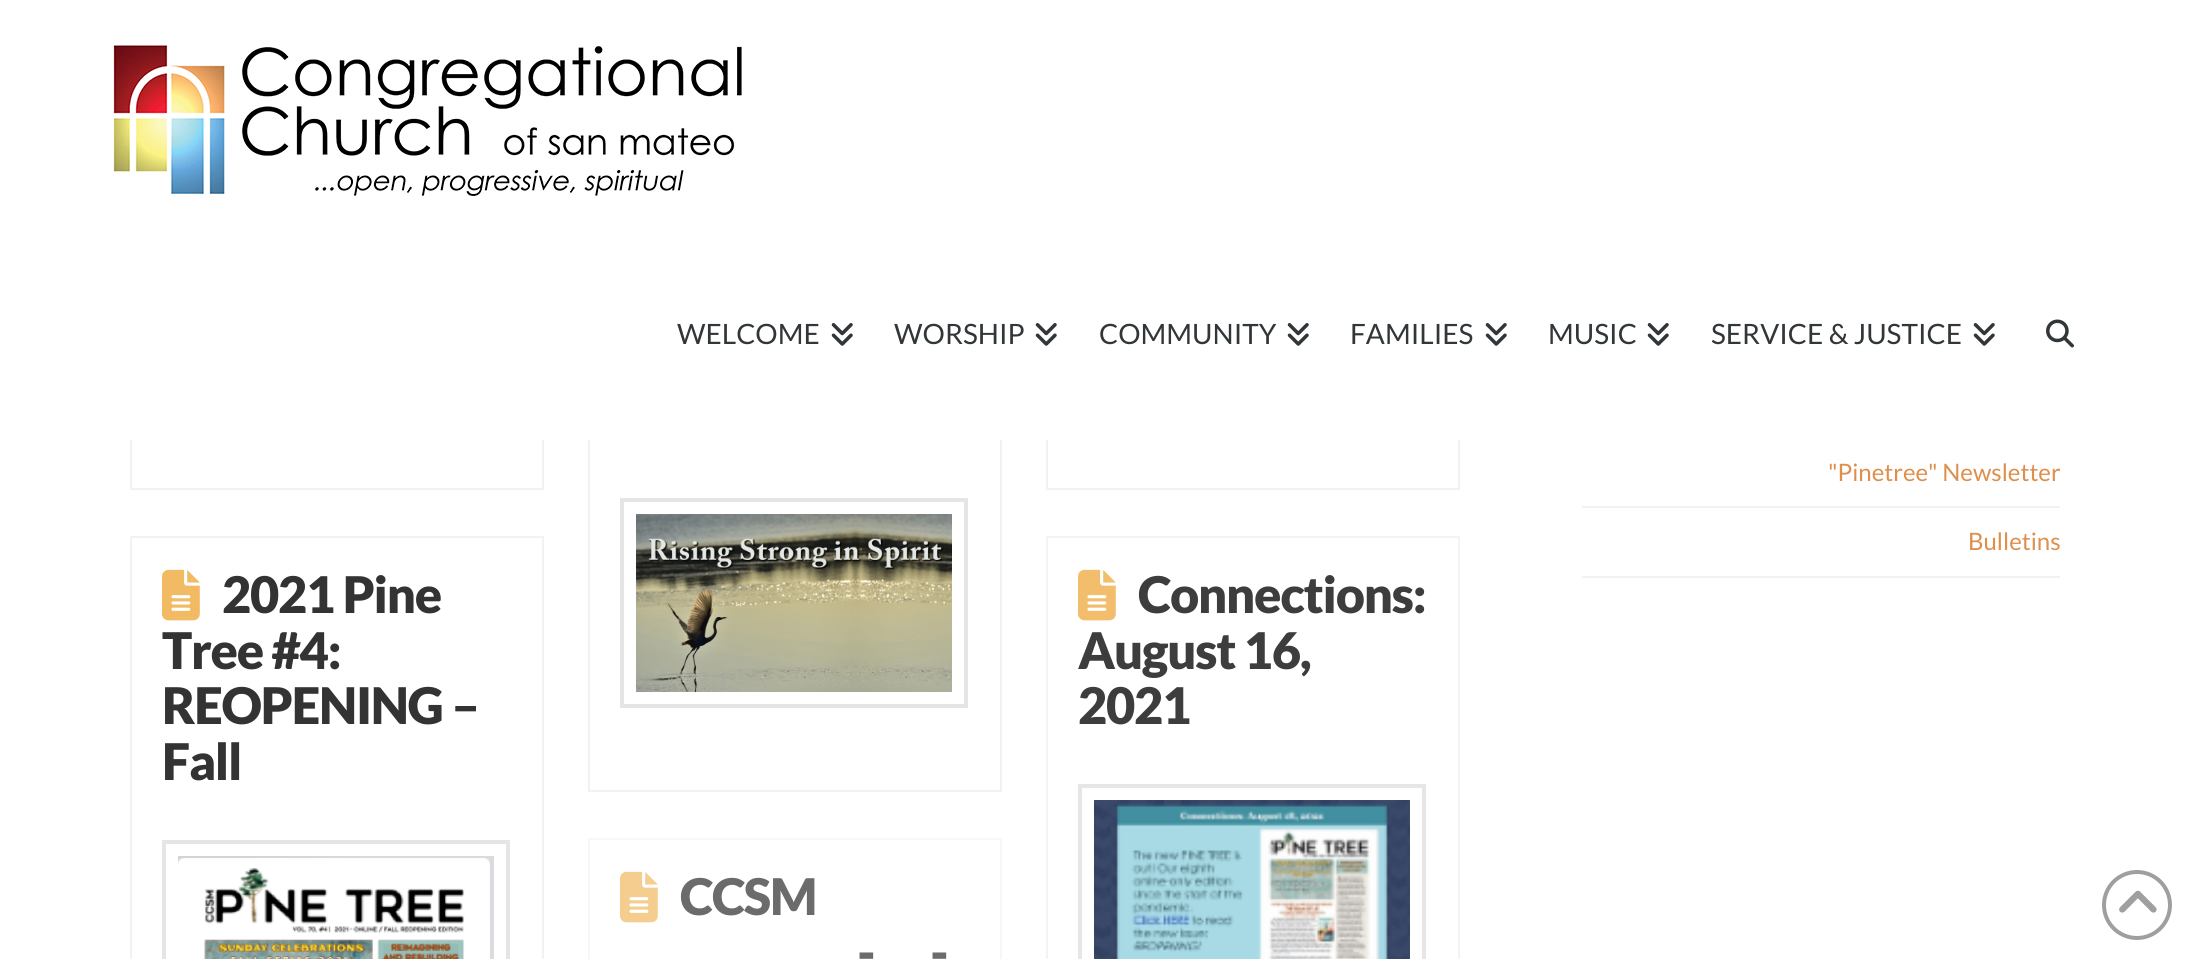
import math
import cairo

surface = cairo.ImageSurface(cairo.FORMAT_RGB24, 2191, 959)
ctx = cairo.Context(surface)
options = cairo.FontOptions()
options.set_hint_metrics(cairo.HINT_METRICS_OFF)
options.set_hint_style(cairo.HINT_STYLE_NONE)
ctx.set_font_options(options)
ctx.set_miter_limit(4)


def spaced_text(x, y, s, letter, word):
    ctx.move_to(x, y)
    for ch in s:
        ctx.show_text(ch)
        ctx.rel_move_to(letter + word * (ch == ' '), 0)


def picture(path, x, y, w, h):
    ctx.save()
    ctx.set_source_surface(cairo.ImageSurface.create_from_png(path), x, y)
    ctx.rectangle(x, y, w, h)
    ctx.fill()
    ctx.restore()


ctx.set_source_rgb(1, 1, 1)
ctx.paint()
ctx.rectangle(131, -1, 412, 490)
ctx.set_source_rgb(0.949, 0.949, 0.949)
ctx.stroke()
ctx.rectangle(589, 251, 412, 540)
ctx.stroke()
ctx.rectangle(1047, -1, 412, 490)
ctx.stroke()
ctx.set_source_rgb(1, 1, 1)
ctx.rectangle(130, 0, 1330, 440)
ctx.fill()
picture("img1.png", 113, 45, 629, 155)
ctx.select_font_face("Lato")
ctx.set_font_size(28)
ctx.set_source_rgb(0.192, 0.212, 0.224)
ctx.move_to(677, 344)
ctx.show_text("WELCOME")
picture("img2.png", 831, 323, 22, 23)
ctx.move_to(894, 344)
ctx.show_text("WORSHIP")
picture("img2.png", 1035, 323, 22, 23)
ctx.move_to(1099, 344)
ctx.show_text("COMMUNITY")
picture("img2.png", 1287, 323, 22, 23)
ctx.move_to(1350, 344)
ctx.show_text("FAMILIES")
picture("img2.png", 1485, 323, 22, 23)
ctx.move_to(1548, 344)
ctx.show_text("MUSIC")
picture("img2.png", 1647, 323, 22, 23)
ctx.move_to(1711, 344)
ctx.show_text("SERVICE & JUSTICE")
picture("img2.png", 1973, 323, 22, 23)
picture("img3.png", 2046, 319, 28, 29)
ctx.set_source_rgb(0.949, 0.949, 0.949)
ctx.rectangle(1582, 576, 478, 2)
ctx.fill()
ctx.set_font_size(24)
ctx.set_source_rgb(0.867, 0.561, 0.294)
ctx.move_to(1828, 481)
ctx.show_text("\"Pinetree\" Newsletter")
ctx.set_source_rgb(0.949, 0.949, 0.949)
ctx.rectangle(1582, 506, 478, 2)
ctx.fill()
ctx.set_source_rgb(0.867, 0.561, 0.294)
ctx.move_to(1968, 550)
ctx.show_text("Bulletins")
ctx.rectangle(622, 500, 344, 206)
ctx.set_source_rgb(0.898, 0.898, 0.898)
ctx.set_line_width(4)
ctx.stroke()
picture("img4.png", 636, 514, 316, 178)
ctx.rectangle(131, 537, 412, 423)
ctx.set_source_rgb(0.949, 0.949, 0.949)
ctx.set_line_width(2)
ctx.stroke()
picture("img5.png", 162, 569, 38, 52)
ctx.select_font_face("Lato Black")
ctx.set_font_size(50.5)
ctx.set_source_rgb(0.2, 0.2, 0.2)
spaced_text(222, 613, "2021 Pine", -1.25, 0)
spaced_text(162, 669, "Tree #4:", -1.25, 0)
spaced_text(162, 724, "REOPENING –", -1.25, 0)
spaced_text(162, 780, "Fall", -1.25, 0)
ctx.rectangle(164, 842, 344, 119)
ctx.set_source_rgb(0.898, 0.898, 0.898)
ctx.set_line_width(4)
ctx.stroke()
picture("img6.png", 178, 856, 316, 103)
ctx.rectangle(1047, 537, 412, 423)
ctx.set_source_rgb(0.953, 0.953, 0.953)
ctx.set_line_width(2)
ctx.stroke()
picture("img7.png", 1078, 569, 38, 52)
ctx.set_source_rgb(0.239, 0.239, 0.239)
spaced_text(1138, 613, "Connections:", -1.25, 0)
spaced_text(1078, 669, "August 16,", -1.25, 0)
spaced_text(1078, 724, "2021", -1.25, 0)
ctx.rectangle(1080, 786, 344, 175)
ctx.set_source_rgb(0.902, 0.902, 0.902)
ctx.set_line_width(4)
ctx.stroke()
picture("img8.png", 1094, 800, 316, 159)
ctx.rectangle(589, 839, 412, 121)
ctx.set_source_rgb(0.965, 0.965, 0.965)
ctx.set_line_width(2)
ctx.stroke()
picture("img9.png", 620, 871, 38, 52)
ctx.set_source_rgb(0.42, 0.42, 0.42)
spaced_text(680, 915, "CCSM", -1.25, 0)
spaced_text(857, 971, "-", -1.25, 0)
spaced_text(930, 971, "-", -1.25, 0)
ctx.new_path()
ctx.arc(2137, 905, 33, 0, 2 * math.pi)
ctx.set_source_rgb(0.624, 0.624, 0.624)
ctx.set_line_width(4)
ctx.stroke()
picture("img10.png", 2119, 890, 38, 23)
surface.write_to_png("page.png")
